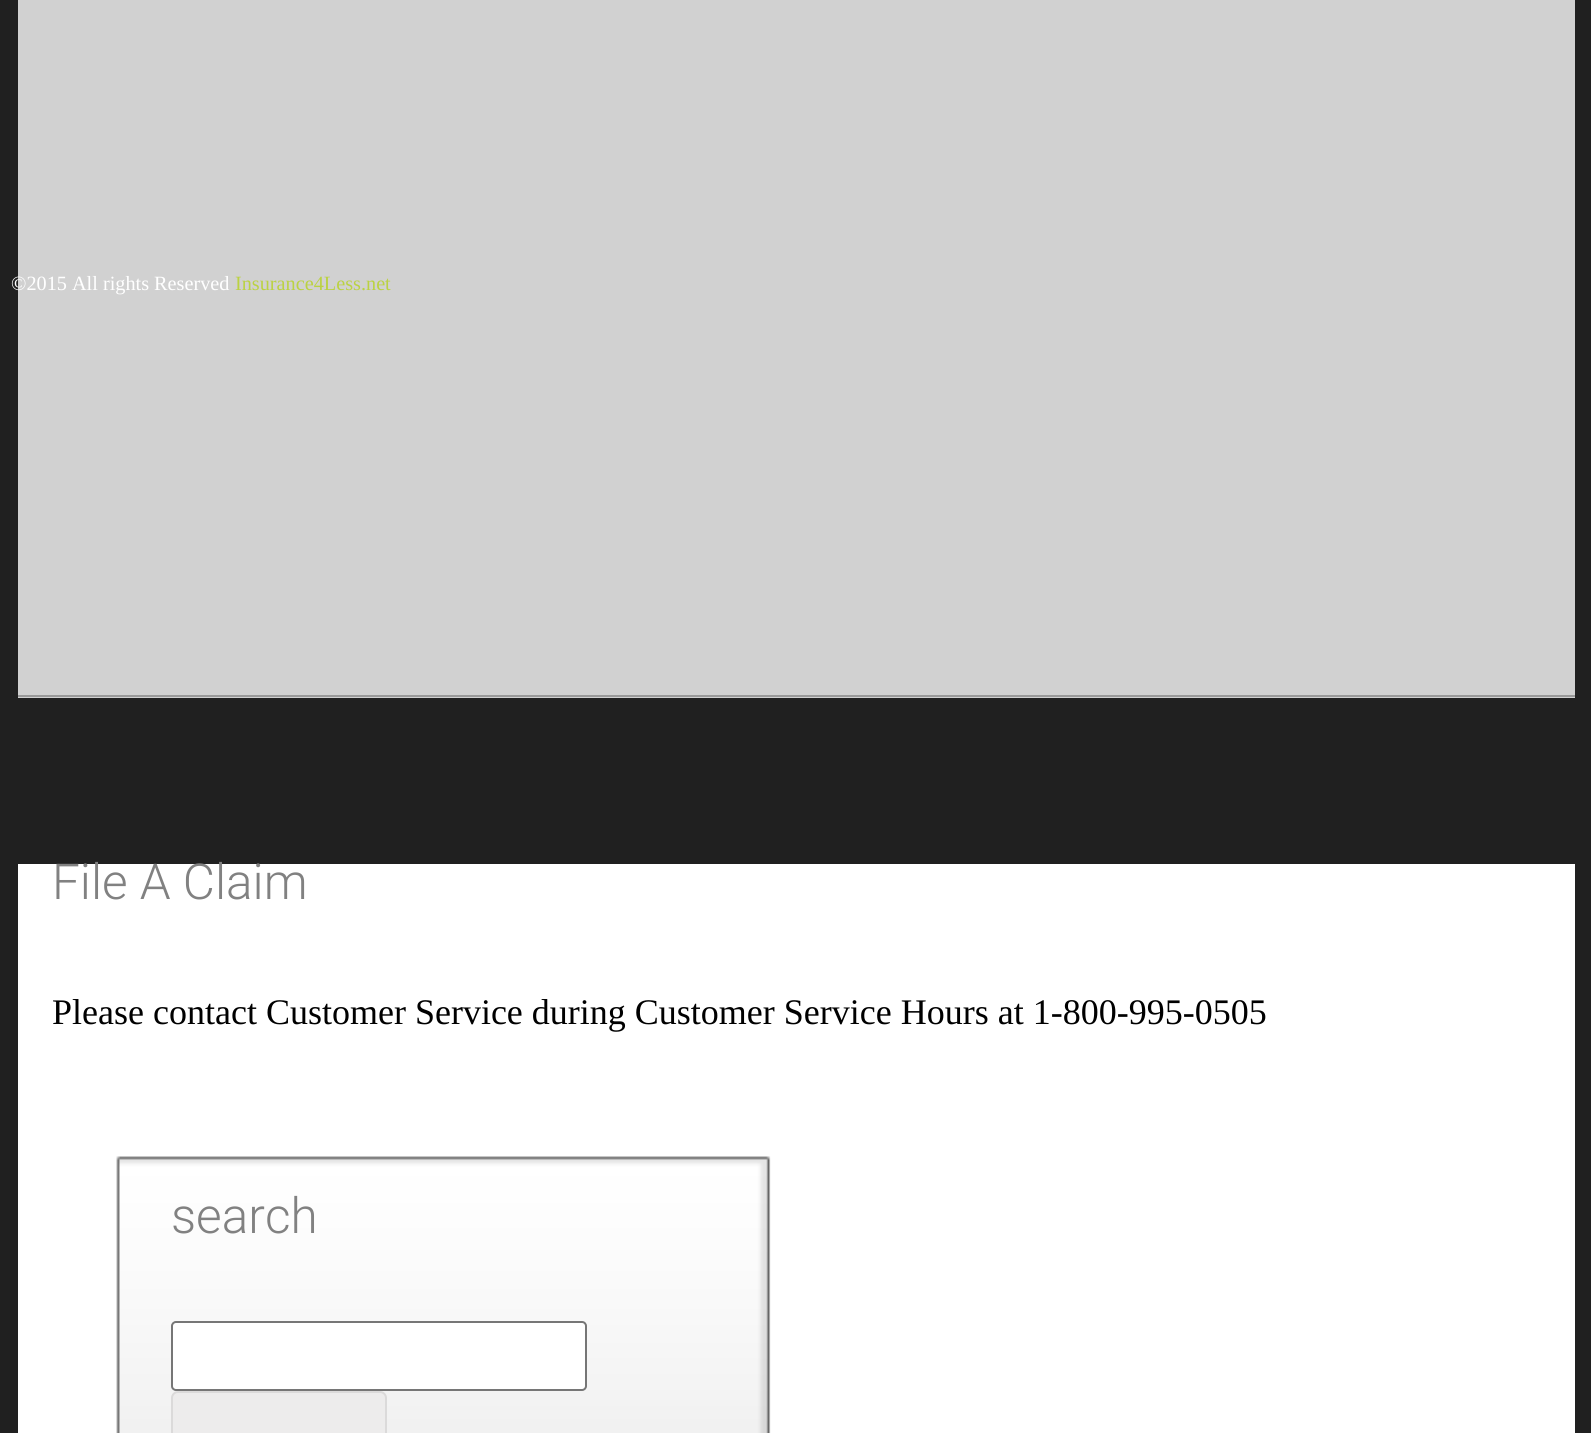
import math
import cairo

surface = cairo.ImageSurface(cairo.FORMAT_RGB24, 1591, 1433)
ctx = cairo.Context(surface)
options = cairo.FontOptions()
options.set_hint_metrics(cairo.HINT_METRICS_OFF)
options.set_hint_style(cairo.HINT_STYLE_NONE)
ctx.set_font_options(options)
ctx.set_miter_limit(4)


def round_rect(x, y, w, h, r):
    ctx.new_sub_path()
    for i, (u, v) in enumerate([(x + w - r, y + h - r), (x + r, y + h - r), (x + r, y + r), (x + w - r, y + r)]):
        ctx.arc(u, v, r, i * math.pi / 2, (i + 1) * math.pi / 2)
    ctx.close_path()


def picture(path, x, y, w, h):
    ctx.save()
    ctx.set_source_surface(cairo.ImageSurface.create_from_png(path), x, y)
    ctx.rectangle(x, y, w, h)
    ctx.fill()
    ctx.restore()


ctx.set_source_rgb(0.125, 0.125, 0.125)
ctx.paint()
ctx.set_source_rgb(0.82, 0.82, 0.82)
ctx.rectangle(18, 0, 1557, 698)
ctx.fill()
ctx.set_source_rgb(0.6, 0.6, 0.6)
ctx.rectangle(18, 695, 1557, 2)
ctx.fill()
ctx.select_font_face("Liberation Serif")
ctx.set_font_size(20.25)
ctx.set_source_rgb(1, 1, 1)
ctx.move_to(11, 290)
ctx.show_text("©2015 All rights Reserved")
ctx.set_source_rgb(0.733, 0.824, 0.259)
ctx.move_to(235, 290)
ctx.show_text("Insurance4Less.net")
ctx.set_source_rgb(1, 1, 1)
ctx.rectangle(18, 864, 1557, 569)
ctx.fill()
ctx.select_font_face("Roboto Light")
ctx.set_font_size(49.5)
ctx.set_source_rgb(0.506, 0.506, 0.506)
ctx.move_to(52, 899)
ctx.show_text("File A Claim")
ctx.select_font_face("Liberation Serif")
ctx.set_font_size(36)
ctx.set_source_rgb(0, 0, 0)
ctx.move_to(52, 1024)
ctx.show_text("Please contact Customer Service during Customer Service Hours at 1-800-995-0505")
picture("img1.png", 116, 1156, 655, 277)
ctx.select_font_face("Roboto Light")
ctx.set_font_size(49.5)
ctx.set_source_rgb(0.506, 0.506, 0.506)
ctx.move_to(171, 1233)
ctx.show_text("search")
ctx.set_source_rgb(1, 1, 1)
round_rect(172, 1322, 414, 68, 4)
ctx.fill_preserve()
ctx.set_source_rgb(0.463, 0.463, 0.463)
ctx.stroke()
ctx.set_source_rgb(0.929, 0.922, 0.922)
round_rect(172, 1392, 214, 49, 6)
ctx.fill_preserve()
ctx.set_source_rgb(0.859, 0.855, 0.855)
ctx.stroke()
surface.write_to_png("page.png")
